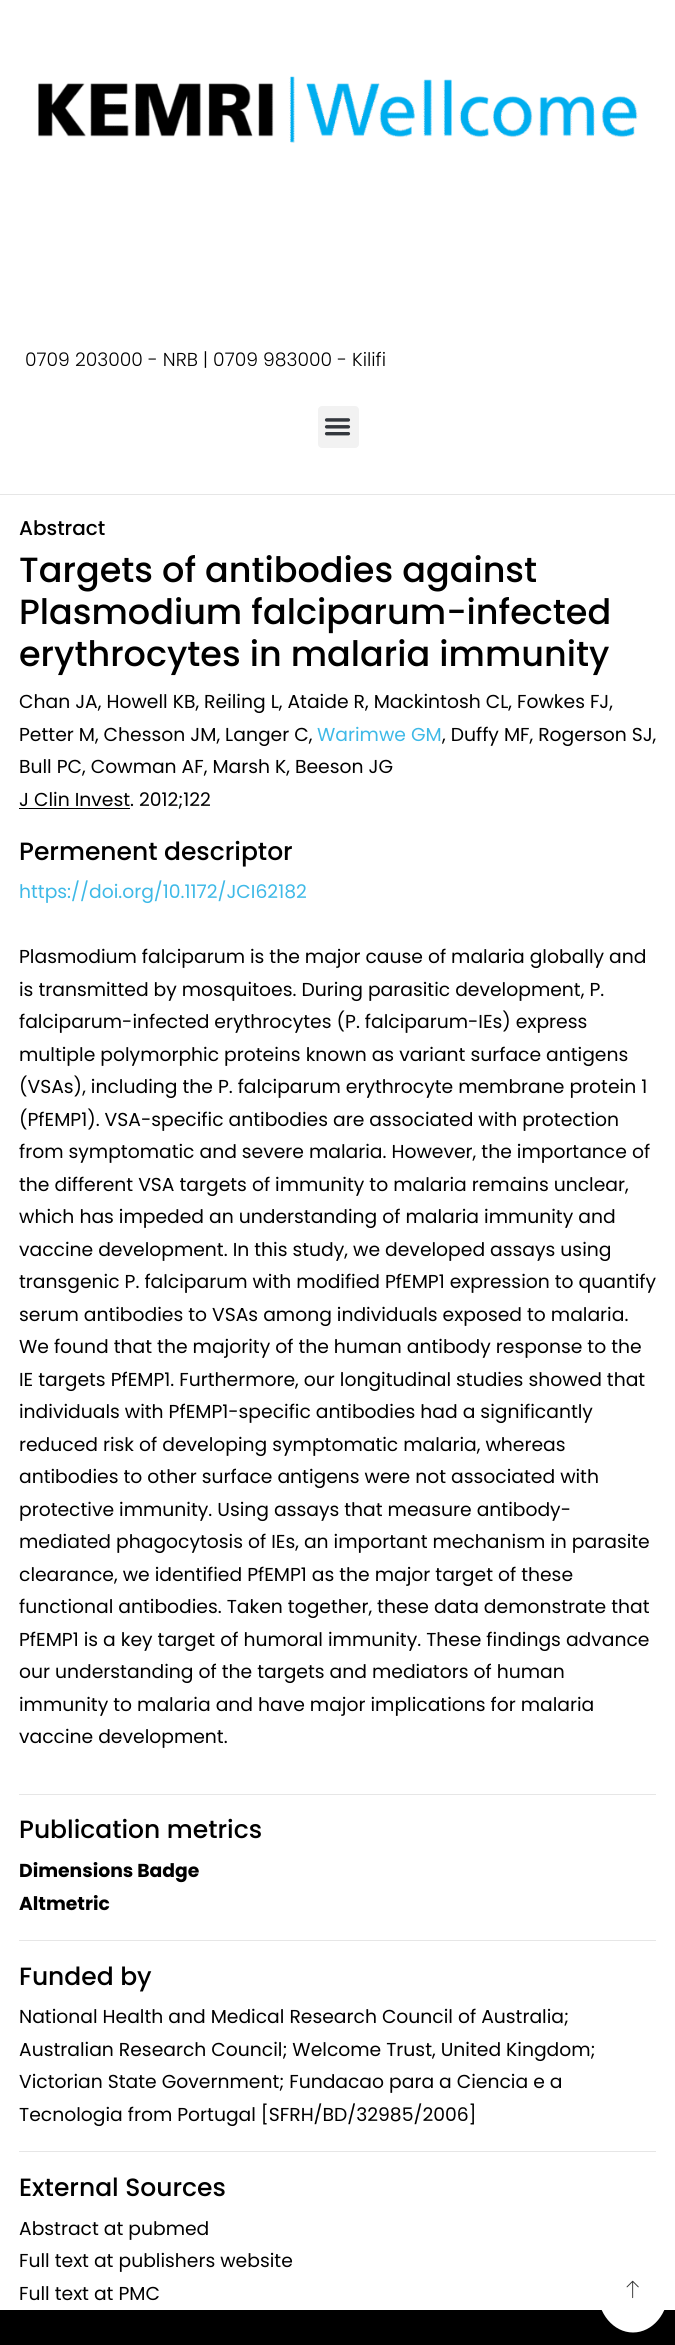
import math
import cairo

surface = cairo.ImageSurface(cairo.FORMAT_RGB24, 675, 2345)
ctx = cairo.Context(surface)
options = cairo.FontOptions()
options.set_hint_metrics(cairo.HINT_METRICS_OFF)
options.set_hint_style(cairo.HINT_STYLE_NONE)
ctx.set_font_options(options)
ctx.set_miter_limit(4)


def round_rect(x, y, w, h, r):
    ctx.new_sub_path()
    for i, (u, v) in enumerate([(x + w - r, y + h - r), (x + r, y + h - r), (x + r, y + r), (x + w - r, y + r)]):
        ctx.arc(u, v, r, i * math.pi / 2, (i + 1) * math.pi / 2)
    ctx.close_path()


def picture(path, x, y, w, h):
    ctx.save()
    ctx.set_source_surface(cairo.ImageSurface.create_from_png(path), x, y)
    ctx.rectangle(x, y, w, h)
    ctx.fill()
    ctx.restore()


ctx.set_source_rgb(1, 1, 1)
ctx.paint()
picture("img1.png", 38, 76, 600, 67)
ctx.select_font_face("Poppins Light")
ctx.set_font_size(18.75)
ctx.set_source_rgb(0, 0, 0)
ctx.move_to(25, 366)
ctx.show_text("0709 203000 - NRB | 0709 983000 - Kilifi")
ctx.set_source_rgb(0.949, 0.949, 0.949)
round_rect(318, 406, 41, 42, 4)
ctx.fill()
picture("img2.png", 324, 418, 27, 18)
ctx.set_source_rgb(0.902, 0.902, 0.902)
ctx.rectangle(0, 494, 675, 1)
ctx.fill()
ctx.select_font_face("Poppins Medium")
ctx.set_font_size(20)
ctx.set_source_rgb(0, 0, 0)
ctx.move_to(19, 535)
ctx.show_text("Abstract")
ctx.set_font_size(35)
ctx.move_to(19, 582)
ctx.show_text("Targets of antibodies against")
ctx.move_to(19, 624)
ctx.show_text("Plasmodium falciparum-infected")
ctx.move_to(19, 666)
ctx.show_text("erythrocytes in malaria immunity")
ctx.select_font_face("Poppins")
ctx.set_font_size(18.75)
ctx.move_to(19, 708)
ctx.show_text("Chan JA, Howell KB, Reiling L, Ataide R, Mackintosh CL, Fowkes FJ,")
ctx.move_to(19, 741)
ctx.show_text("Petter M, Chesson JM, Langer C,")
ctx.set_source_rgb(0.243, 0.725, 0.906)
ctx.move_to(317, 741)
ctx.show_text("Warimwe GM")
ctx.set_source_rgb(0, 0, 0)
ctx.move_to(442, 741)
ctx.show_text(", Duffy MF, Rogerson SJ,")
ctx.move_to(19, 773)
ctx.show_text("Bull PC, Cowman AF, Marsh K, Beeson JG")
ctx.rectangle(19, 808, 111, 1)
ctx.fill()
ctx.move_to(19, 806)
ctx.show_text("J Clin Invest. 2012;122")
ctx.select_font_face("Poppins Medium")
ctx.set_font_size(25)
ctx.move_to(19, 860)
ctx.show_text("Permenent descriptor")
ctx.select_font_face("Poppins")
ctx.set_font_size(18.75)
ctx.set_source_rgb(0.243, 0.725, 0.906)
ctx.move_to(19, 898)
ctx.show_text("https://doi.org/10.1172/JCI62182")
ctx.set_source_rgb(0, 0, 0)
ctx.move_to(19, 963)
ctx.show_text("Plasmodium falciparum is the major cause of malaria globally and")
ctx.move_to(19, 996)
ctx.show_text("is transmitted by mosquitoes. During parasitic development, P.")
ctx.move_to(19, 1028)
ctx.show_text("falciparum-infected erythrocytes (P. falciparum-IEs) express")
ctx.move_to(19, 1061)
ctx.show_text("multiple polymorphic proteins known as variant surface antigens")
ctx.move_to(19, 1093)
ctx.show_text("(VSAs), including the P. falciparum erythrocyte membrane protein 1")
ctx.move_to(19, 1126)
ctx.show_text("(PfEMP1). VSA-specific antibodies are associated with protection")
ctx.move_to(19, 1158)
ctx.show_text("from symptomatic and severe malaria. However, the importance of")
ctx.move_to(19, 1191)
ctx.show_text("the different VSA targets of immunity to malaria remains unclear,")
ctx.move_to(19, 1223)
ctx.show_text("which has impeded an understanding of malaria immunity and")
ctx.move_to(19, 1256)
ctx.show_text("vaccine development. In this study, we developed assays using")
ctx.move_to(19, 1288)
ctx.show_text("transgenic P. falciparum with modified PfEMP1 expression to quantify")
ctx.move_to(19, 1321)
ctx.show_text("serum antibodies to VSAs among individuals exposed to malaria.")
ctx.move_to(19, 1353)
ctx.show_text("We found that the majority of the human antibody response to the")
ctx.move_to(19, 1386)
ctx.show_text("IE targets PfEMP1. Furthermore, our longitudinal studies showed that")
ctx.move_to(19, 1418)
ctx.show_text("individuals with PfEMP1-specific antibodies had a significantly")
ctx.move_to(19, 1451)
ctx.show_text("reduced risk of developing symptomatic malaria, whereas")
ctx.move_to(19, 1483)
ctx.show_text("antibodies to other surface antigens were not associated with")
ctx.move_to(19, 1516)
ctx.show_text("protective immunity. Using assays that measure antibody-")
ctx.move_to(19, 1548)
ctx.show_text("mediated phagocytosis of IEs, an important mechanism in parasite")
ctx.move_to(19, 1581)
ctx.show_text("clearance, we identified PfEMP1 as the major target of these")
ctx.move_to(19, 1613)
ctx.show_text("functional antibodies. Taken together, these data demonstrate that")
ctx.move_to(19, 1646)
ctx.show_text("PfEMP1 is a key target of humoral immunity. These findings advance")
ctx.move_to(19, 1678)
ctx.show_text("our understanding of the targets and mediators of human")
ctx.move_to(19, 1711)
ctx.show_text("immunity to malaria and have major implications for malaria")
ctx.move_to(19, 1743)
ctx.show_text("vaccine development.")
ctx.set_source_rgb(0.902, 0.902, 0.902)
ctx.rectangle(19, 1794, 637, 1)
ctx.fill()
ctx.select_font_face("Poppins Medium")
ctx.set_font_size(25)
ctx.set_source_rgb(0, 0, 0)
ctx.move_to(19, 1838)
ctx.show_text("Publication metrics")
ctx.select_font_face("Poppins", cairo.FONT_SLANT_NORMAL, cairo.FONT_WEIGHT_BOLD)
ctx.set_font_size(18.75)
ctx.move_to(19, 1877)
ctx.show_text("Dimensions Badge")
ctx.move_to(19, 1910)
ctx.show_text("Altmetric")
ctx.set_source_rgb(0.902, 0.902, 0.902)
ctx.rectangle(19, 1940, 637, 1)
ctx.fill()
ctx.select_font_face("Poppins Medium")
ctx.set_font_size(25)
ctx.set_source_rgb(0, 0, 0)
ctx.move_to(19, 1985)
ctx.show_text("Funded by")
ctx.select_font_face("Poppins")
ctx.set_font_size(18.75)
ctx.move_to(19, 2023)
ctx.show_text("National Health and Medical Research Council of Australia;")
ctx.move_to(19, 2056)
ctx.show_text("Australian Research Council; Welcome Trust, United Kingdom;")
ctx.move_to(19, 2088)
ctx.show_text("Victorian State Government; Fundacao para a Ciencia e a")
ctx.move_to(19, 2121)
ctx.show_text("Tecnologia from Portugal [SFRH/BD/32985/2006]")
ctx.set_source_rgb(0.902, 0.902, 0.902)
ctx.rectangle(19, 2151, 637, 1)
ctx.fill()
ctx.select_font_face("Poppins Medium")
ctx.set_font_size(25)
ctx.set_source_rgb(0, 0, 0)
ctx.move_to(19, 2196)
ctx.show_text("External Sources")
ctx.select_font_face("Poppins")
ctx.set_font_size(18.75)
ctx.move_to(19, 2235)
ctx.show_text("Abstract at pubmed")
ctx.move_to(19, 2267)
ctx.show_text("Full text at publishers website")
ctx.move_to(19, 2300)
ctx.show_text("Full text at PMC")
ctx.rectangle(0, 2310, 675, 35)
ctx.fill()
ctx.set_source_rgb(1, 1, 1)
ctx.new_path()
ctx.move_to(633, 2247.5)
ctx.curve_to(652.5, 2247.5, 668.5, 2266.5, 668.5, 2290)
ctx.curve_to(668.5, 2313.5, 652.5, 2332.5, 633, 2332.5)
ctx.curve_to(613.5, 2332.5, 597.5, 2313.5, 597.5, 2290)
ctx.curve_to(597.5, 2266.5, 613.5, 2247.5, 633, 2247.5)
ctx.close_path()
ctx.fill()
picture("img3.png", 626, 2280, 13, 19)
surface.write_to_png("page.png")
